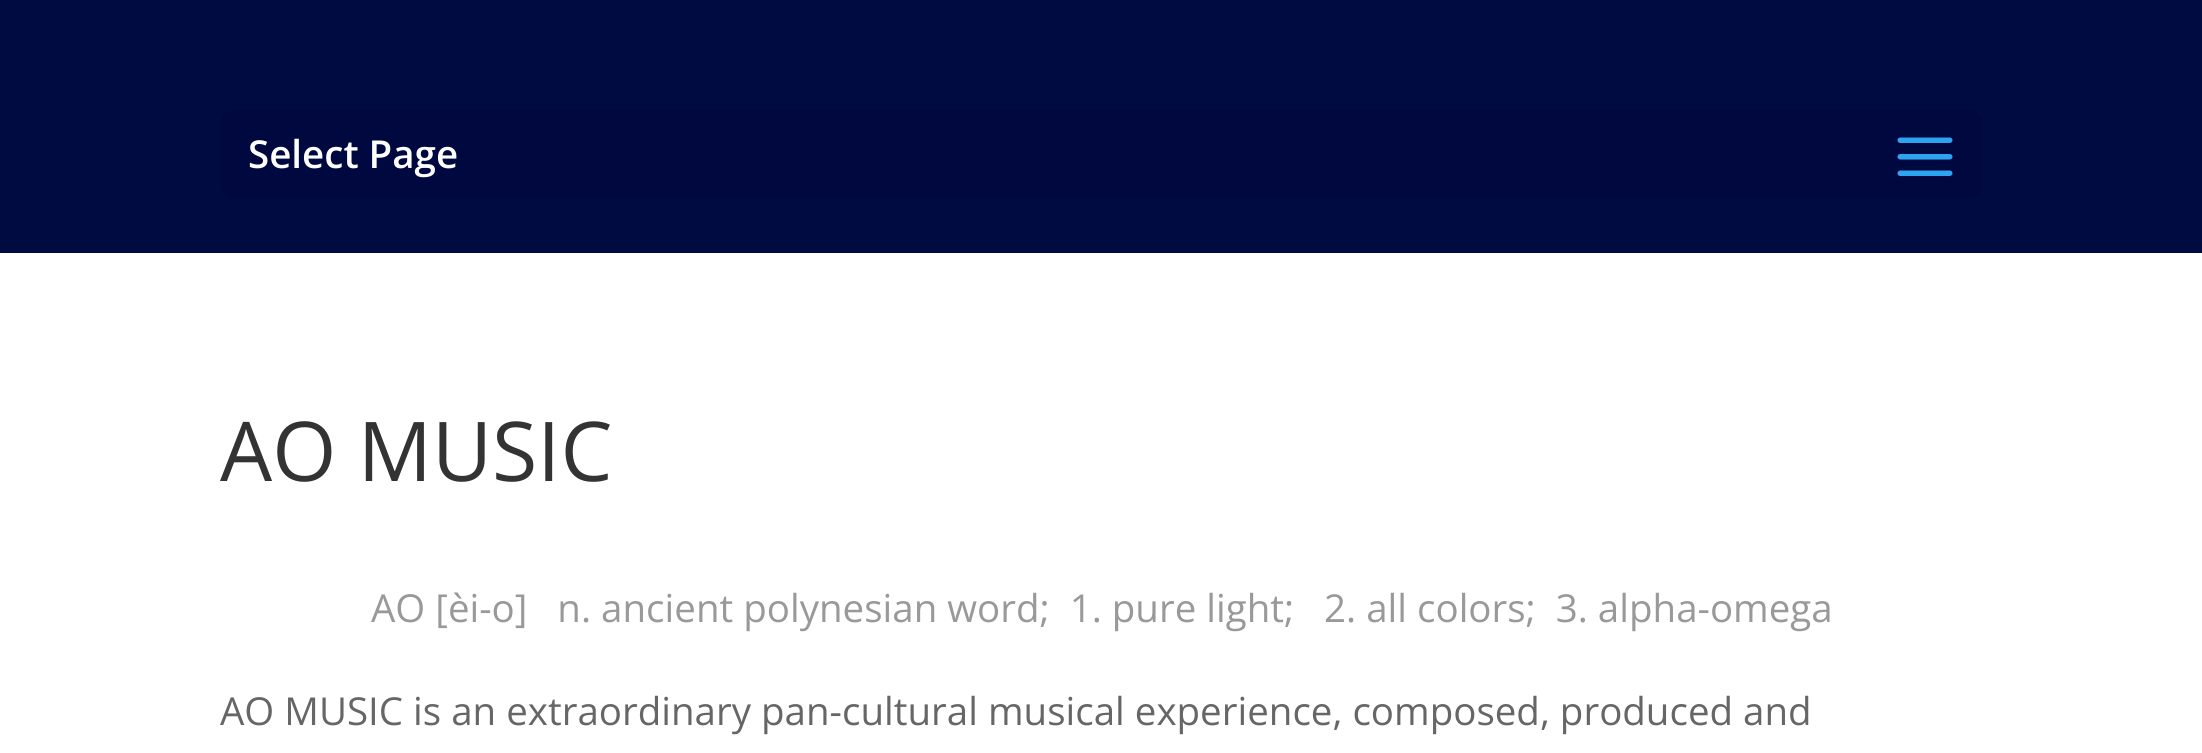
import math
import cairo

surface = cairo.ImageSurface(cairo.FORMAT_RGB24, 2202, 753)
ctx = cairo.Context(surface)
options = cairo.FontOptions()
options.set_hint_metrics(cairo.HINT_METRICS_OFF)
options.set_hint_style(cairo.HINT_STYLE_NONE)
ctx.set_font_options(options)
ctx.set_miter_limit(4)


def round_rect(x, y, w, h, r):
    ctx.new_sub_path()
    for i, (u, v) in enumerate([(x + w - r, y + h - r), (x + r, y + h - r), (x + r, y + r), (x + w - r, y + r)]):
        ctx.arc(u, v, r, i * math.pi / 2, (i + 1) * math.pi / 2)
    ctx.close_path()


def picture(path, x, y, w, h):
    ctx.save()
    ctx.set_source_surface(cairo.ImageSurface.create_from_png(path), x, y)
    ctx.rectangle(x, y, w, h)
    ctx.fill()
    ctx.restore()


ctx.set_source_rgb(1, 1, 1)
ctx.paint()
ctx.set_source_rgb(0, 0.043, 0.259)
ctx.rectangle(0, 0, 2202, 253)
ctx.fill()
ctx.set_source_rgb(0, 0.039, 0.247)
round_rect(220, 110, 1763, 88, 14)
ctx.fill()
ctx.select_font_face("Open Sans SemiBold")
ctx.set_font_size(38.5)
ctx.set_source_rgb(1, 1, 1)
ctx.move_to(248, 168)
ctx.show_text("Select Page")
picture("img1.png", 1897, 137, 56, 39)
ctx.select_font_face("Open Sans")
ctx.set_font_size(82.5)
ctx.set_source_rgb(0.2, 0.2, 0.2)
ctx.move_to(220, 481)
ctx.show_text("AO MUSIC")
ctx.set_font_size(38.5)
ctx.set_source_rgb(0.6, 0.6, 0.6)
ctx.move_to(371, 622)
ctx.show_text("AO [èi-o]   n. ancient polynesian word;  1. pure light;   2. all colors;  3. alpha-omega")
ctx.set_source_rgb(0.4, 0.4, 0.4)
ctx.move_to(220, 725)
ctx.show_text("AO MUSIC is an extraordinary pan-cultural musical experience, composed, produced and")
surface.write_to_png("page.png")
